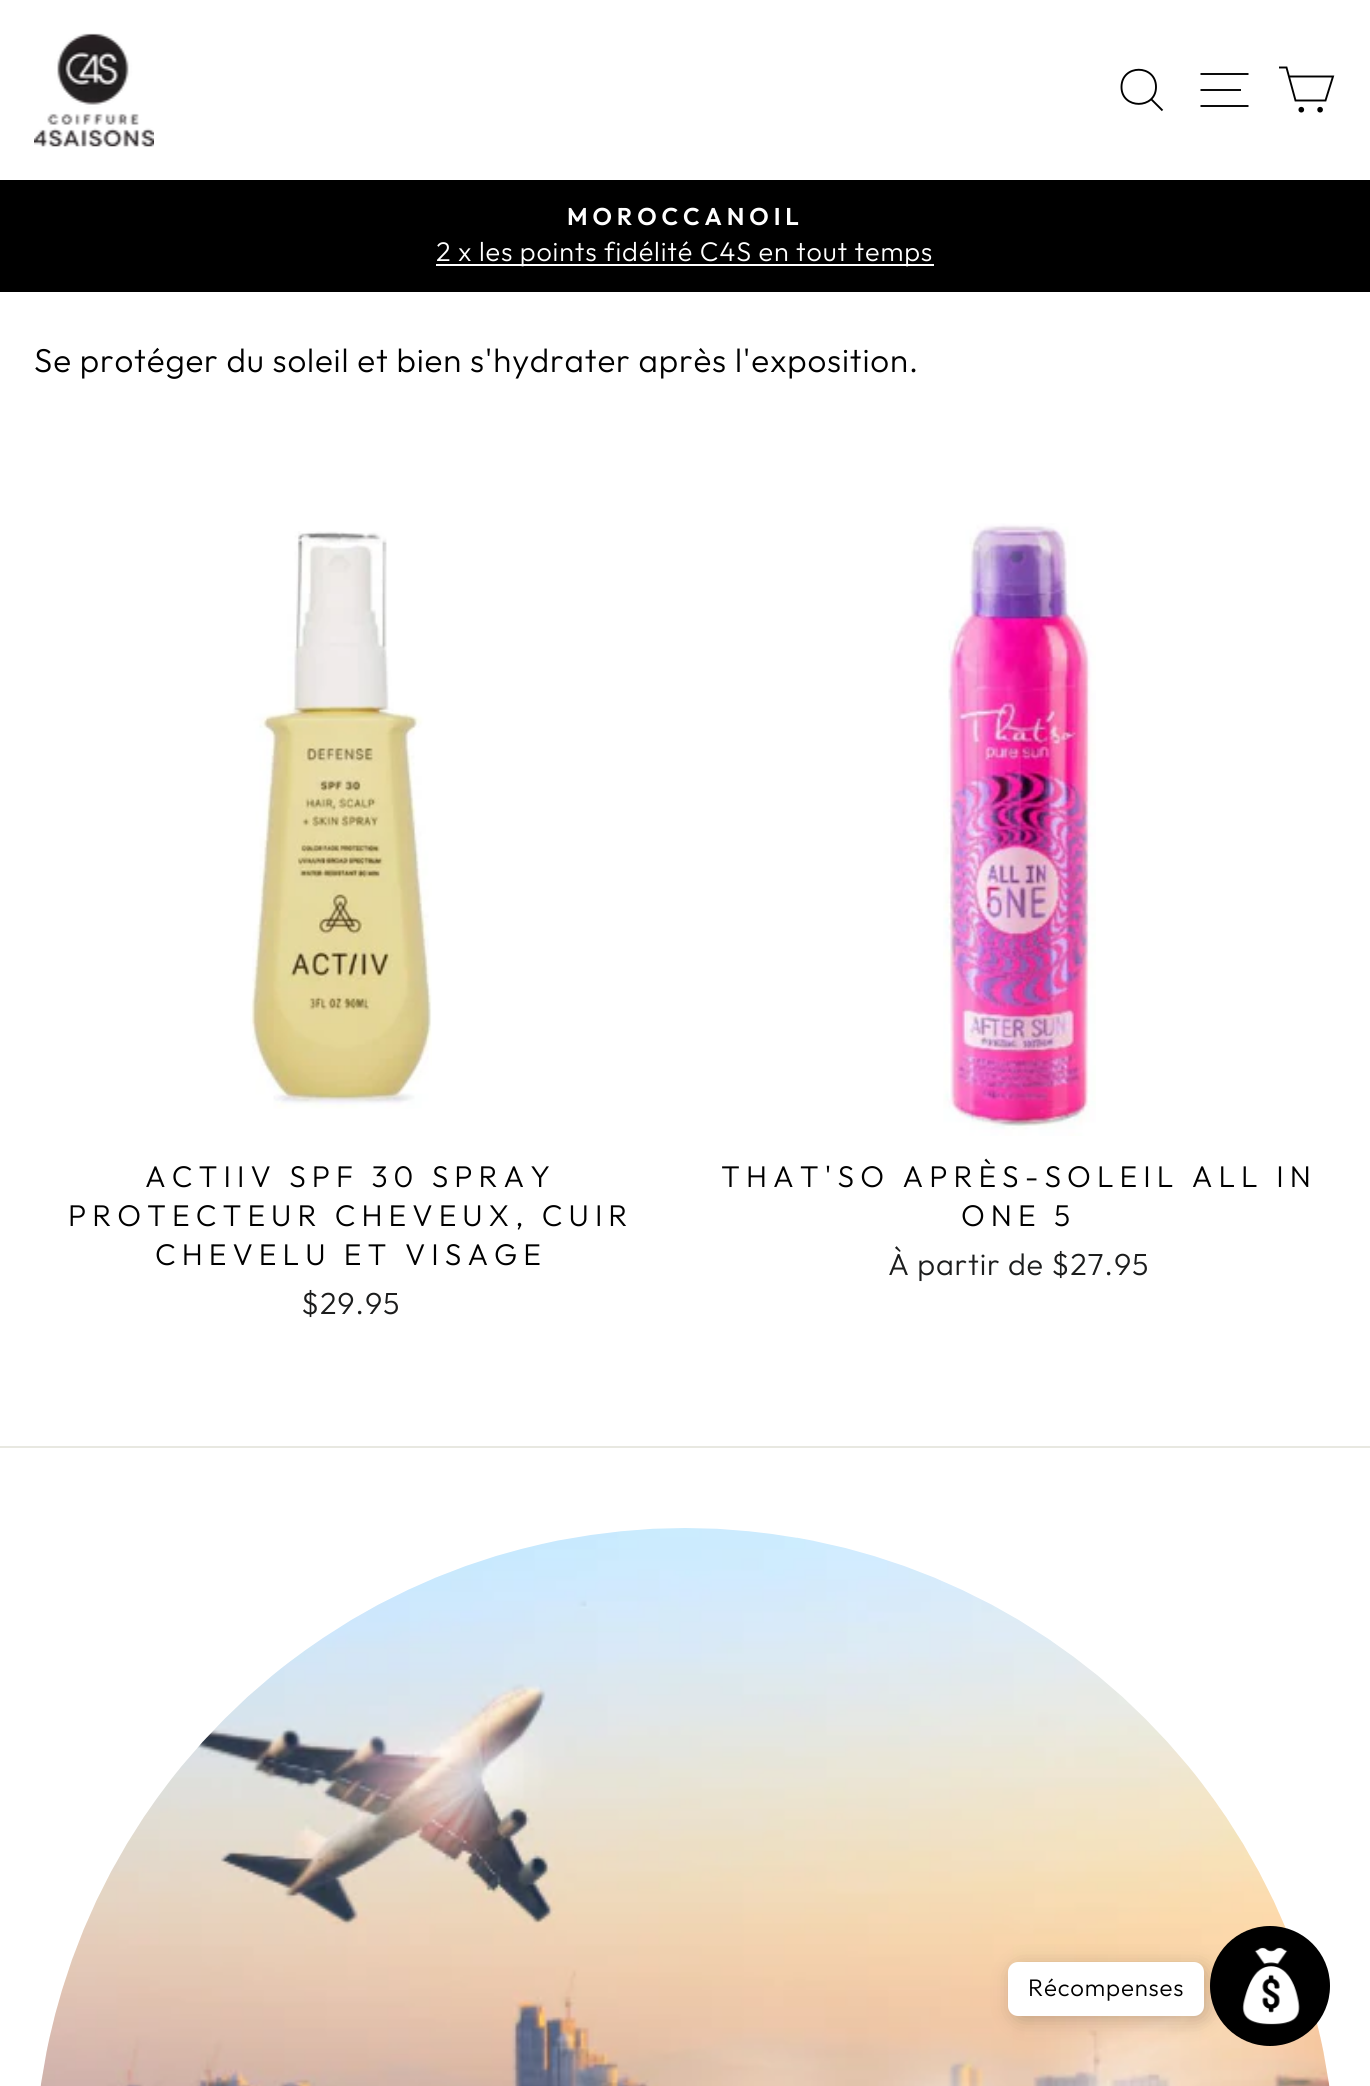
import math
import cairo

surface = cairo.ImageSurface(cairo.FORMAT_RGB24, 1370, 2086)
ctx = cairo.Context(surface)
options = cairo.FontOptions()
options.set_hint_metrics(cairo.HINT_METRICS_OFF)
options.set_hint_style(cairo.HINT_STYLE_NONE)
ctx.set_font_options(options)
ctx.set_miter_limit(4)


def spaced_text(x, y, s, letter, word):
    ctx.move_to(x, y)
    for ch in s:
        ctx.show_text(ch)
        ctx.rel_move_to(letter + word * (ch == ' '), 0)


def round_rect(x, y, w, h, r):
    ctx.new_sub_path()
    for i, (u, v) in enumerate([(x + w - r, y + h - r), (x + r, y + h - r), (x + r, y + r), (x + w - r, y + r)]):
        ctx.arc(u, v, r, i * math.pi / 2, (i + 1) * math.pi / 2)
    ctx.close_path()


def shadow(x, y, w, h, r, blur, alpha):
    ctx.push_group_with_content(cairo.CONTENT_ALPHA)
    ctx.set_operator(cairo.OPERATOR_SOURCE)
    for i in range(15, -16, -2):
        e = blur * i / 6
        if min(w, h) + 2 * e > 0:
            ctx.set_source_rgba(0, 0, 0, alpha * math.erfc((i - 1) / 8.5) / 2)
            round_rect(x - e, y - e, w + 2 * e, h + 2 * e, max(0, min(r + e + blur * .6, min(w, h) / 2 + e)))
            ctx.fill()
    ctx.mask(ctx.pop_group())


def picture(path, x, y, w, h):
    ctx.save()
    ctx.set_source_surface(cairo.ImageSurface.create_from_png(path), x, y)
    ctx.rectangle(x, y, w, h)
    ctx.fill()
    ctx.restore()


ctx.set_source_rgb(1, 1, 1)
ctx.paint()
picture("img1.png", 34, 33, 120, 114)
ctx.new_path()
ctx.move_to(1156, 87)
ctx.curve_to(1156, 109.5, 1121.5, 109.5, 1121.5, 87)
ctx.curve_to(1121.5, 64, 1156, 64, 1156, 87)
ctx.close_path()
ctx.move_to(1162.5, 110.5)
ctx.line_to(1151.5, 99.5)
ctx.set_source_rgb(0, 0, 0)
ctx.set_line_width(1.9)
ctx.stroke()
ctx.new_path()
ctx.move_to(1200.5, 74)
ctx.line_to(1248.5, 74)
ctx.move_to(1200.5, 90)
ctx.line_to(1241, 90)
ctx.move_to(1200.5, 106)
ctx.line_to(1248.5, 106)
ctx.stroke()
ctx.new_path()
ctx.move_to(1289, 76.5)
ctx.line_to(1333, 76.5)
ctx.line_to(1325.5, 100.5)
ctx.line_to(1295.5, 100.5)
ctx.line_to(1286.5, 67.5)
ctx.line_to(1279, 67.5)
ctx.stroke()
ctx.arc(1301.3, 109.7, 1.9, 0, 2 * math.pi)
ctx.fill_preserve()
ctx.stroke()
ctx.arc(1320.1, 109.7, 1.9, 0, 2 * math.pi)
ctx.fill_preserve()
ctx.stroke()
ctx.rectangle(0, 180, 1370, 112)
ctx.fill()
ctx.select_font_face("Outfit SemiBold")
ctx.set_font_size(24.25)
ctx.set_source_rgb(1, 1, 1)
spaced_text(567, 225, "MOROCCANOIL", 4.9, 0)
ctx.rectangle(436, 264, 498, 2)
ctx.fill()
ctx.select_font_face("Outfit Light")
ctx.set_font_size(27)
spaced_text(436, 261, "2 x les points fidélité C4S en tout temps", 0.83, 0)
ctx.set_font_size(33.1)
ctx.set_source_rgb(0, 0, 0)
spaced_text(34, 372, "Se protéger du soleil et bien s'hydrater après l'exposition.", 0.83, 0)
picture("img2.png", 250, 531, 182, 578)
ctx.set_font_size(30)
spaced_text(145, 1187, "ACTIIV SPF 30 SPRAY", 6, 0)
spaced_text(68, 1226, "PROTECTEUR CHEVEUX, CUIR", 6, 0)
spaced_text(155, 1265, "CHEVELU ET VISAGE", 6, 0)
ctx.set_font_size(30.5)
ctx.set_source_rgb(0.11, 0.114, 0.114)
spaced_text(301, 1314, "$29.95", 0.83, 0)
picture("img3.png", 943, 523, 153, 613)
ctx.set_font_size(30)
ctx.set_source_rgb(0, 0, 0)
spaced_text(721, 1187, "THAT'SO APRÈS-SOLEIL ALL IN", 6, 0)
spaced_text(961, 1226, "ONE 5", 6, 0)
ctx.set_font_size(30.5)
ctx.set_source_rgb(0.11, 0.114, 0.114)
spaced_text(888, 1275, "À partir de $27.95", 0.83, 0)
ctx.set_source_rgb(0.91, 0.91, 0.882)
ctx.rectangle(0, 1446, 1370, 2)
ctx.fill()
picture("img4.png", 40, 1528, 1290, 558)
ctx.set_source_rgb(0, 0, 0)
ctx.arc(1270, 1986, 60, 0, 2 * math.pi)
ctx.fill()
ctx.set_source_rgb(0, 0, 0)
shadow(1012, 1966, 196, 54, 10, 10, 0.2)
ctx.set_source_rgb(1, 1, 1)
round_rect(1008, 1962, 196, 54, 10)
ctx.fill()
ctx.set_font_size(24)
ctx.set_source_rgb(0, 0, 0)
spaced_text(1028, 1996, "Récompenses", 0.83, 0)
picture("img5.png", 1242, 1947, 58, 78)
surface.write_to_png("page.png")
